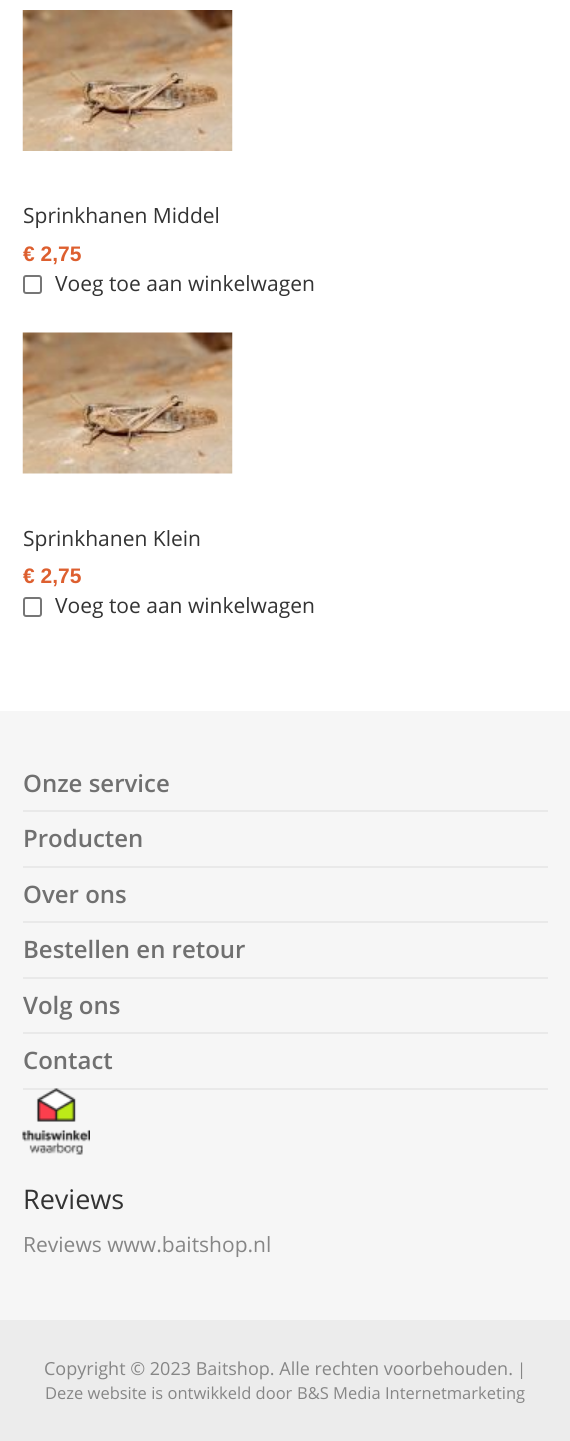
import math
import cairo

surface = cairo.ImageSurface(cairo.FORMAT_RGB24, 570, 1441)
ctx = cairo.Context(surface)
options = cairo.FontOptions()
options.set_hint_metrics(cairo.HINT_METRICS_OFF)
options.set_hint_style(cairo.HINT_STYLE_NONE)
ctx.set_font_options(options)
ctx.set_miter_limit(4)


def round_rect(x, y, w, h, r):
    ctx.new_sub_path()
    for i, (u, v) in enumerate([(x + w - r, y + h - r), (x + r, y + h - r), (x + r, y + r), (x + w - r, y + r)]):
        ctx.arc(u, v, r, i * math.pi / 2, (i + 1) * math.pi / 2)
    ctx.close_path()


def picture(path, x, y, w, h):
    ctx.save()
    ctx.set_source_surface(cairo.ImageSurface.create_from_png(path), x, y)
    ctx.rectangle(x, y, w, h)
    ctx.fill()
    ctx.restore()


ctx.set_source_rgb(1, 1, 1)
ctx.paint()
picture("img1.png", 22, 10, 211, 141)
ctx.select_font_face("Open Sans")
ctx.set_font_size(21)
ctx.set_source_rgb(0.2, 0.2, 0.2)
ctx.move_to(23, 223)
ctx.show_text("Sprinkhanen Middel")
ctx.select_font_face("Liberation Sans", cairo.FONT_SLANT_NORMAL, cairo.FONT_WEIGHT_BOLD)
ctx.set_source_rgb(0.867, 0.373, 0.184)
ctx.move_to(23, 261)
ctx.show_text("€ 2,75")
round_rect(24, 276, 17, 17, 2)
ctx.set_source_rgb(0.463, 0.463, 0.463)
ctx.stroke()
ctx.select_font_face("Open Sans")
ctx.set_source_rgb(0.2, 0.2, 0.2)
ctx.move_to(55, 291)
ctx.show_text("Voeg toe aan winkelwagen")
picture("img2.png", 22, 332, 211, 142)
ctx.move_to(23, 546)
ctx.show_text("Sprinkhanen Klein")
ctx.select_font_face("Liberation Sans", cairo.FONT_SLANT_NORMAL, cairo.FONT_WEIGHT_BOLD)
ctx.set_source_rgb(0.867, 0.373, 0.184)
ctx.move_to(23, 583)
ctx.show_text("€ 2,75")
round_rect(24, 598, 17, 18, 2)
ctx.set_source_rgb(0.463, 0.463, 0.463)
ctx.stroke()
ctx.select_font_face("Open Sans")
ctx.set_source_rgb(0.2, 0.2, 0.2)
ctx.move_to(55, 613)
ctx.show_text("Voeg toe aan winkelwagen")
ctx.set_source_rgb(0.961, 0.961, 0.961)
ctx.rectangle(0, 711, 570, 609)
ctx.fill()
ctx.set_source_rgb(0.914, 0.914, 0.914)
ctx.rectangle(23, 810, 525, 2)
ctx.fill()
ctx.select_font_face("Open Sans SemiBold")
ctx.set_font_size(24)
ctx.set_source_rgb(0.439, 0.439, 0.439)
ctx.move_to(23, 792)
ctx.show_text("Onze service")
ctx.set_source_rgb(0.914, 0.914, 0.914)
ctx.rectangle(23, 866, 525, 2)
ctx.fill()
ctx.set_source_rgb(0.439, 0.439, 0.439)
ctx.move_to(23, 847)
ctx.show_text("Producten")
ctx.set_source_rgb(0.914, 0.914, 0.914)
ctx.rectangle(23, 921, 525, 2)
ctx.fill()
ctx.set_source_rgb(0.439, 0.439, 0.439)
ctx.move_to(23, 903)
ctx.show_text("Over ons")
ctx.set_source_rgb(0.914, 0.914, 0.914)
ctx.rectangle(23, 977, 525, 2)
ctx.fill()
ctx.set_source_rgb(0.439, 0.439, 0.439)
ctx.move_to(23, 958)
ctx.show_text("Bestellen en retour")
ctx.set_source_rgb(0.914, 0.914, 0.914)
ctx.rectangle(23, 1032, 525, 2)
ctx.fill()
ctx.set_source_rgb(0.439, 0.439, 0.439)
ctx.move_to(23, 1014)
ctx.show_text("Volg ons")
ctx.set_source_rgb(0.914, 0.914, 0.914)
ctx.rectangle(23, 1088, 525, 2)
ctx.fill()
ctx.set_source_rgb(0.439, 0.439, 0.439)
ctx.move_to(23, 1069)
ctx.show_text("Contact")
picture("img3.png", 22, 1088, 68, 67)
ctx.select_font_face("Open Sans")
ctx.set_font_size(27)
ctx.set_source_rgb(0.2, 0.2, 0.2)
ctx.move_to(23, 1209)
ctx.show_text("Reviews")
ctx.set_font_size(21)
ctx.set_source_rgb(0.525, 0.525, 0.525)
ctx.move_to(23, 1252)
ctx.show_text("Reviews www.baitshop.nl")
ctx.set_source_rgb(0.922, 0.922, 0.922)
ctx.rectangle(0, 1320, 570, 121)
ctx.fill()
ctx.set_font_size(18)
ctx.set_source_rgb(0.525, 0.525, 0.525)
ctx.move_to(44, 1375)
ctx.show_text("Copyright © 2023 Baitshop. Alle rechten voorbehouden.")
ctx.set_font_size(16.5)
ctx.move_to(517, 1375)
ctx.show_text("|")
ctx.move_to(45, 1399)
ctx.show_text("Deze website is ontwikkeld door")
ctx.move_to(297, 1399)
ctx.show_text("B&S Media Internetmarketing")
surface.write_to_png("page.png")
